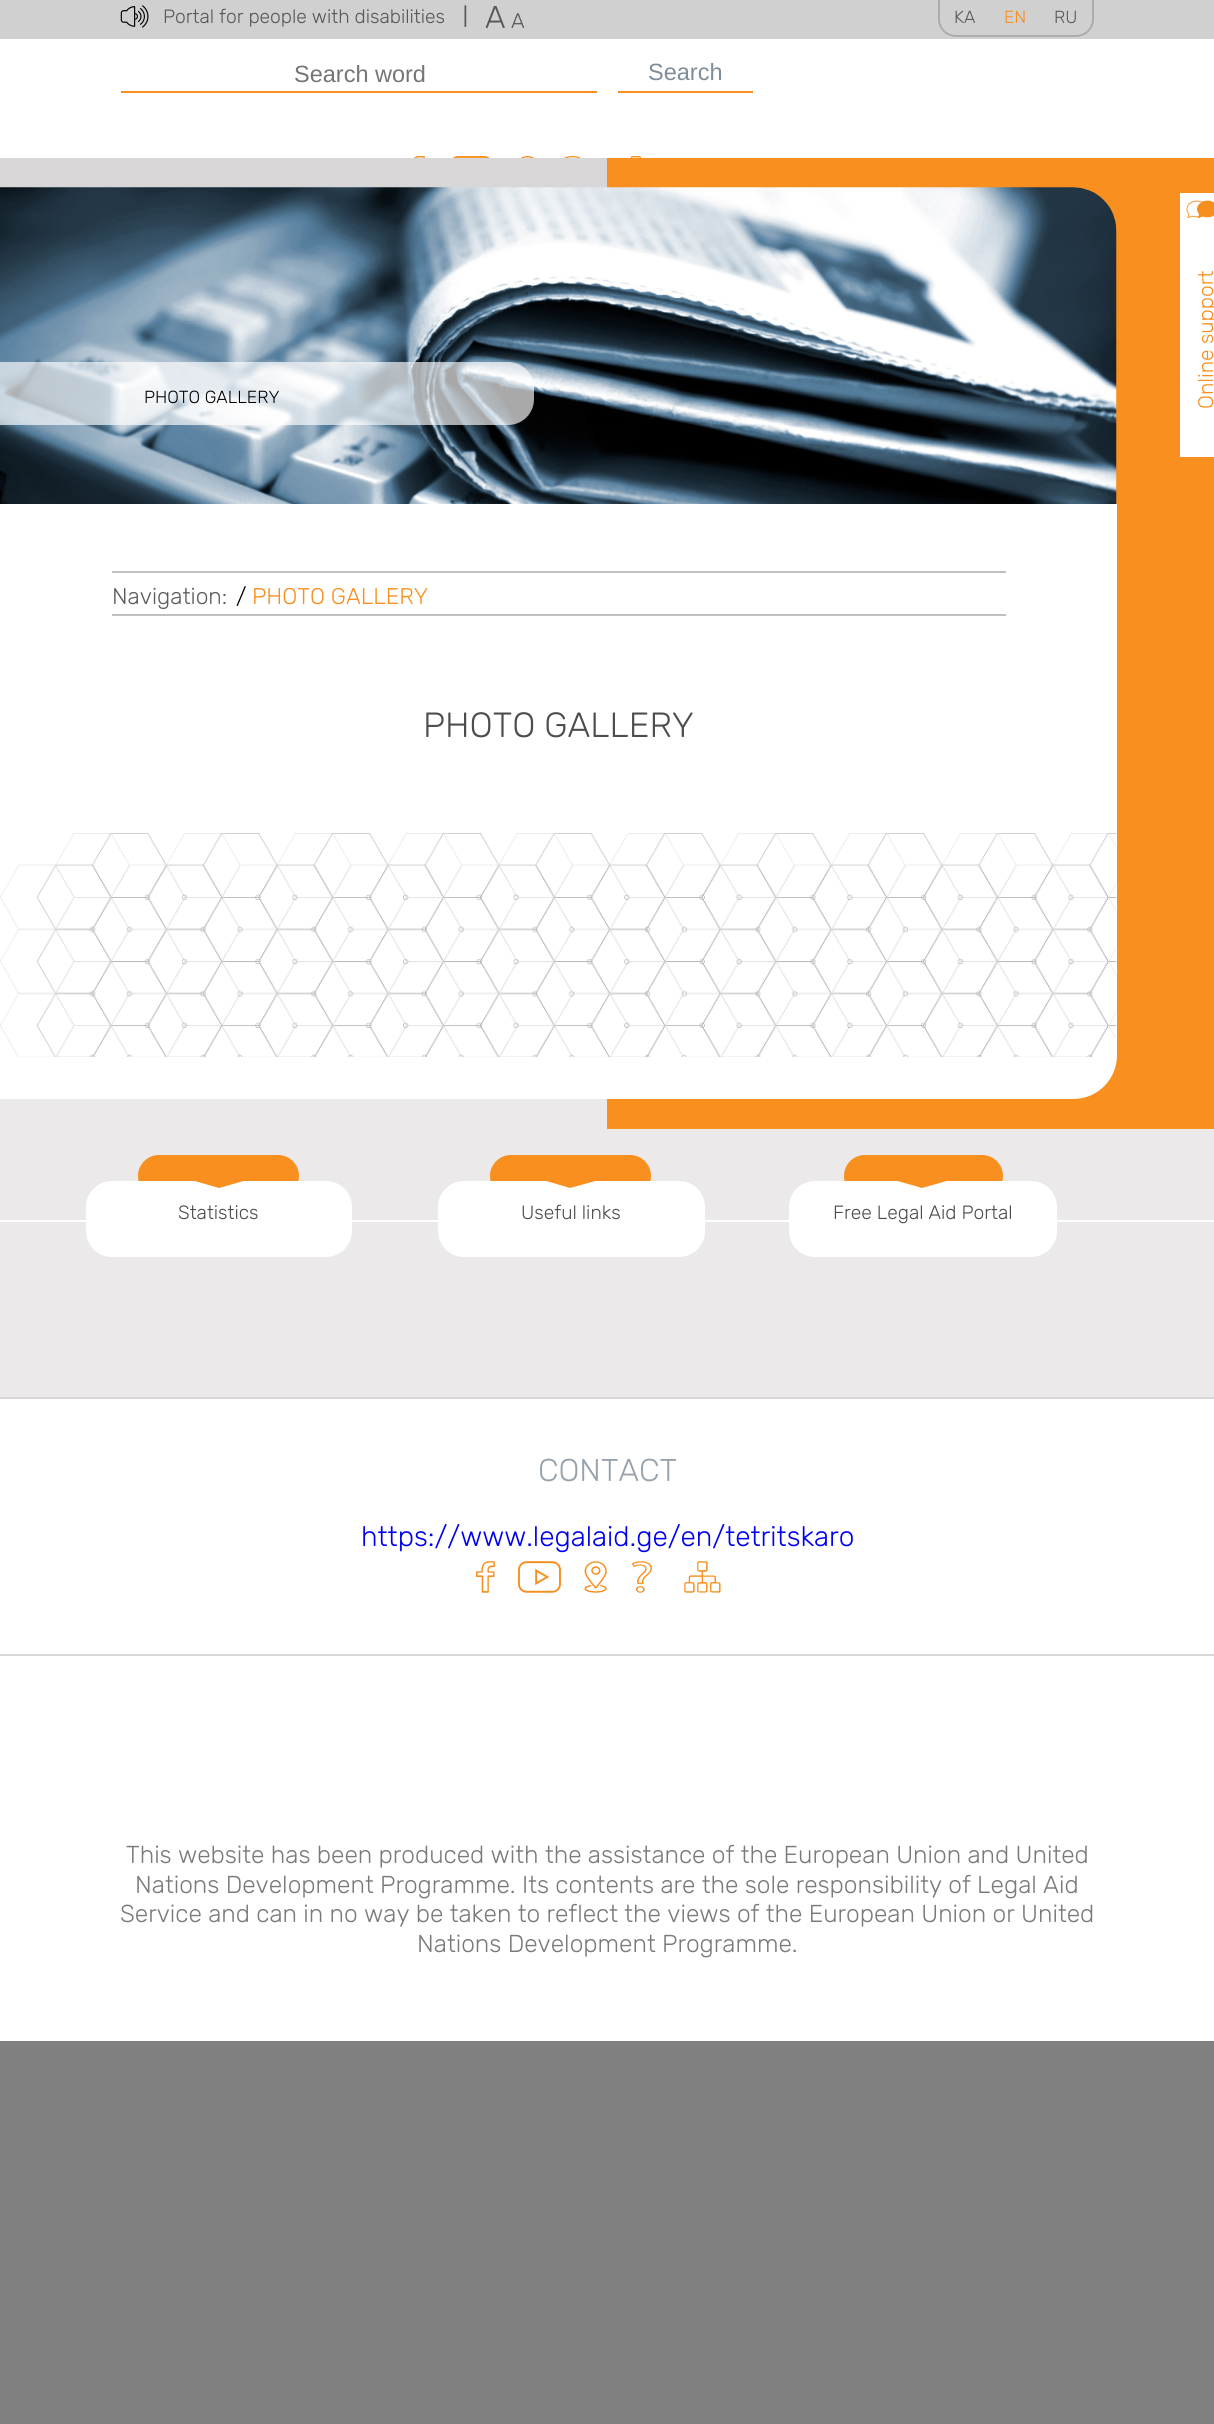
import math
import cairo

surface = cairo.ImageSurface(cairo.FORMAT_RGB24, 1214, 2424)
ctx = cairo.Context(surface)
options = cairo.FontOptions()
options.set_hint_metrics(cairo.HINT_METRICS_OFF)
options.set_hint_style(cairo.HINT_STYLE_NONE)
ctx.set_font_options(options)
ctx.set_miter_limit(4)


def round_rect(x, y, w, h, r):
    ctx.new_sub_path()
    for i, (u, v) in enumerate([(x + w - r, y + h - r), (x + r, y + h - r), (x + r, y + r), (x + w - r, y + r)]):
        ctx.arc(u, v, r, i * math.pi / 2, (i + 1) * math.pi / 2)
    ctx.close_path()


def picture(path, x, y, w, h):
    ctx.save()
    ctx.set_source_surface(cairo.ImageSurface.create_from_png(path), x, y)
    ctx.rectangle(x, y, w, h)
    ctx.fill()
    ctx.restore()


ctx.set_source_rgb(0.502, 0.502, 0.502)
ctx.paint()
ctx.set_source_rgb(1, 1, 1)
ctx.rectangle(0, 39, 1214, 119)
ctx.fill()
ctx.set_source_rgb(0.816, 0.816, 0.816)
ctx.rectangle(0, 0, 1214, 39)
ctx.fill()
picture("img1.png", 120, 5, 29, 23)
ctx.select_font_face("Rubik Light")
ctx.set_font_size(19.25)
ctx.set_source_rgb(0.341, 0.341, 0.349)
ctx.move_to(163, 23)
ctx.show_text("Portal for people with disabilities")
ctx.select_font_face("Rubik", cairo.FONT_SLANT_NORMAL, cairo.FONT_WEIGHT_BOLD)
ctx.move_to(463, 23)
ctx.show_text("|")
ctx.select_font_face("Rubik Light")
ctx.set_font_size(31.5)
ctx.move_to(485, 28)
ctx.show_text("A")
ctx.set_font_size(21)
ctx.move_to(511, 28)
ctx.show_text("A")
ctx.set_source_rgb(0.675, 0.675, 0.69)
ctx.set_fill_rule(cairo.FILL_RULE_EVEN_ODD)
ctx.new_path()
ctx.move_to(938, 0)
ctx.line_to(1094, 0)
ctx.line_to(1094, 19)
ctx.curve_to(1094, 29, 1086, 37, 1076, 37)
ctx.line_to(956, 37)
ctx.curve_to(946, 37, 938, 29, 938, 19)
ctx.close_path()
ctx.move_to(940, 0)
ctx.line_to(1092, 0)
ctx.line_to(1092, 19)
ctx.curve_to(1092, 28, 1085, 35, 1076, 35)
ctx.line_to(956, 35)
ctx.curve_to(947, 35, 940, 28, 940, 19)
ctx.close_path()
ctx.fill()
ctx.set_font_size(17.5)
ctx.set_source_rgb(0.341, 0.341, 0.349)
ctx.move_to(954, 23)
ctx.show_text("KA")
ctx.set_source_rgb(0.969, 0.561, 0.118)
ctx.move_to(1004, 23)
ctx.show_text("EN")
ctx.set_source_rgb(0.341, 0.341, 0.349)
ctx.move_to(1054, 23)
ctx.show_text("RU")
ctx.set_source_rgb(0.969, 0.561, 0.118)
ctx.rectangle(121, 91, 476, 2)
ctx.fill()
ctx.select_font_face("Liberation Sans")
ctx.set_font_size(23.5)
ctx.set_source_rgb(0.459, 0.459, 0.459)
ctx.move_to(294, 82)
ctx.show_text("Search word")
ctx.set_source_rgb(0.969, 0.561, 0.118)
ctx.rectangle(618, 91, 135, 2)
ctx.fill()
ctx.set_source_rgb(0.498, 0.553, 0.6)
ctx.move_to(648, 80)
ctx.show_text("Search")
picture("img2.png", 414, 156, 11, 2)
picture("img3.png", 453, 156, 37, 2)
picture("img4.png", 521, 156, 13, 2)
picture("img5.png", 563, 156, 18, 2)
picture("img6.png", 630, 156, 12, 2)
gradient = cairo.LinearGradient(607, 157, 607, 1397)
gradient.add_color_stop_rgba(0, 0.847, 0.839, 0.839, 1)
gradient.add_color_stop_rgba(1, 0.824, 0.816, 0.816, 1)
ctx.set_source(gradient)
ctx.rectangle(0, 158, 607, 30)
ctx.fill()
ctx.set_source_rgb(0.918, 0.914, 0.914)
ctx.rectangle(0, 1099, 1214, 298)
ctx.fill()
ctx.set_source_rgb(0.969, 0.561, 0.118)
ctx.rectangle(607, 158, 607, 971)
ctx.fill()
picture("img7.png", 0, 187, 1117, 317)
ctx.set_source_rgba(1, 1, 1, 0.66)
ctx.new_path()
ctx.move_to(0, 362)
ctx.line_to(508, 362)
ctx.curve_to(522.5, 362, 534, 373.5, 534, 388)
ctx.line_to(534, 399)
ctx.curve_to(534, 413.5, 522.5, 425, 508, 425)
ctx.line_to(0, 425)
ctx.close_path()
ctx.fill()
ctx.select_font_face("Rubik Light")
ctx.set_font_size(17.5)
ctx.set_source_rgb(0, 0, 0)
ctx.move_to(144, 403)
ctx.show_text("PHOTO GALLERY")
ctx.set_source_rgb(1, 1, 1)
ctx.rectangle(1180, 193, 34, 264)
ctx.fill()
picture("img8.png", 1186, 200, 17, 19)
picture("img9.png", 1197, 200, 17, 19)
ctx.set_font_size(21)
ctx.set_source_rgb(0.969, 0.561, 0.118)
ctx.save()
ctx.translate(1213, 409)
ctx.rotate(-90 * math.pi / 180)
ctx.move_to(0, 0)
ctx.show_text("Online support")
ctx.restore()
ctx.set_source_rgb(1, 1, 1)
ctx.new_path()
ctx.move_to(0, 504)
ctx.line_to(1117, 504)
ctx.line_to(1117, 1055)
ctx.curve_to(1117, 1079.5, 1097.5, 1099, 1073, 1099)
ctx.line_to(0, 1099)
ctx.close_path()
ctx.fill()
ctx.set_source_rgb(0.753, 0.753, 0.757)
ctx.rectangle(112, 571, 894, 2)
ctx.fill()
ctx.rectangle(112, 614, 894, 2)
ctx.fill()
ctx.set_font_size(22.75)
ctx.set_source_rgb(0.365, 0.365, 0.373)
ctx.move_to(112, 604)
ctx.show_text("Navigation:")
ctx.set_source_rgb(0, 0, 0)
ctx.move_to(236, 604)
ctx.show_text("/")
ctx.set_source_rgb(0.969, 0.561, 0.118)
ctx.move_to(252, 604)
ctx.show_text("PHOTO GALLERY")
ctx.set_font_size(35)
ctx.set_source_rgb(0.298, 0.302, 0.31)
ctx.move_to(423, 737)
ctx.show_text("PHOTO GALLERY")
picture("img10.png", 0, 833, 1117, 224)
ctx.set_source_rgb(0.969, 0.561, 0.118)
round_rect(138, 1155, 161, 42, 21)
ctx.fill()
ctx.set_source_rgb(1, 1, 1)
ctx.rectangle(0, 1220, 1214, 2)
ctx.fill()
round_rect(86, 1181, 266, 76, 26)
ctx.fill()
ctx.set_source_rgb(0.969, 0.561, 0.118)
ctx.set_fill_rule(cairo.FILL_RULE_WINDING)
ctx.new_path()
ctx.move_to(184, 1178)
ctx.line_to(254, 1178)
ctx.line_to(219, 1188)
ctx.close_path()
ctx.fill()
ctx.set_font_size(19.25)
ctx.set_source_rgb(0.298, 0.302, 0.31)
ctx.move_to(178, 1219)
ctx.show_text("Statistics")
ctx.set_source_rgb(0.969, 0.561, 0.118)
round_rect(490, 1155, 161, 42, 21)
ctx.fill()
ctx.set_source_rgb(1, 1, 1)
round_rect(438, 1181, 267, 76, 26)
ctx.fill()
ctx.set_source_rgb(0.969, 0.561, 0.118)
ctx.new_path()
ctx.move_to(536, 1178)
ctx.line_to(606, 1178)
ctx.line_to(570, 1188)
ctx.close_path()
ctx.fill()
ctx.set_source_rgb(0.298, 0.302, 0.31)
ctx.move_to(521, 1219)
ctx.show_text("Useful links")
ctx.set_source_rgb(0.969, 0.561, 0.118)
round_rect(844, 1155, 159, 42, 21)
ctx.fill()
ctx.set_source_rgb(1, 1, 1)
round_rect(789, 1181, 268, 76, 26)
ctx.fill()
ctx.set_source_rgb(0.969, 0.561, 0.118)
ctx.new_path()
ctx.move_to(887, 1178)
ctx.line_to(957, 1178)
ctx.line_to(922, 1188)
ctx.close_path()
ctx.fill()
ctx.set_source_rgb(0.298, 0.302, 0.31)
ctx.move_to(833, 1219)
ctx.show_text("Free Legal Aid Portal")
ctx.set_source_rgb(1, 1, 1)
ctx.rectangle(0, 1399, 1214, 642)
ctx.fill()
ctx.set_source_rgb(0.847, 0.839, 0.839)
ctx.rectangle(0, 1397, 1214, 2)
ctx.fill()
ctx.rectangle(0, 1654, 1214, 2)
ctx.fill()
ctx.set_font_size(31.5)
ctx.set_source_rgb(0.592, 0.635, 0.675)
ctx.move_to(538, 1481)
ctx.show_text("CONTACT")
ctx.set_font_size(28)
ctx.set_source_rgb(0, 0, 0.933)
ctx.move_to(361, 1546)
ctx.show_text("https://www.legalaid.ge/en/tetritskaro")
picture("img11.png", 476, 1561, 19, 32)
picture("img12.png", 518, 1561, 43, 32)
picture("img13.png", 584, 1561, 23, 32)
picture("img14.png", 631, 1561, 21, 32)
picture("img15.png", 684, 1561, 37, 32)
ctx.set_font_size(24.5)
ctx.set_source_rgb(0.475, 0.478, 0.482)
ctx.move_to(126, 1863)
ctx.show_text("This website has been produced with the assistance of the European Union and United")
ctx.move_to(135, 1893)
ctx.show_text("Nations Development Programme. Its contents are the sole responsibility of Legal Aid")
ctx.move_to(120, 1922)
ctx.show_text("Service and can in no way be taken to reflect the views of the European Union or United")
ctx.move_to(417, 1952)
ctx.show_text("Nations Development Programme.")
surface.write_to_png("page.png")
